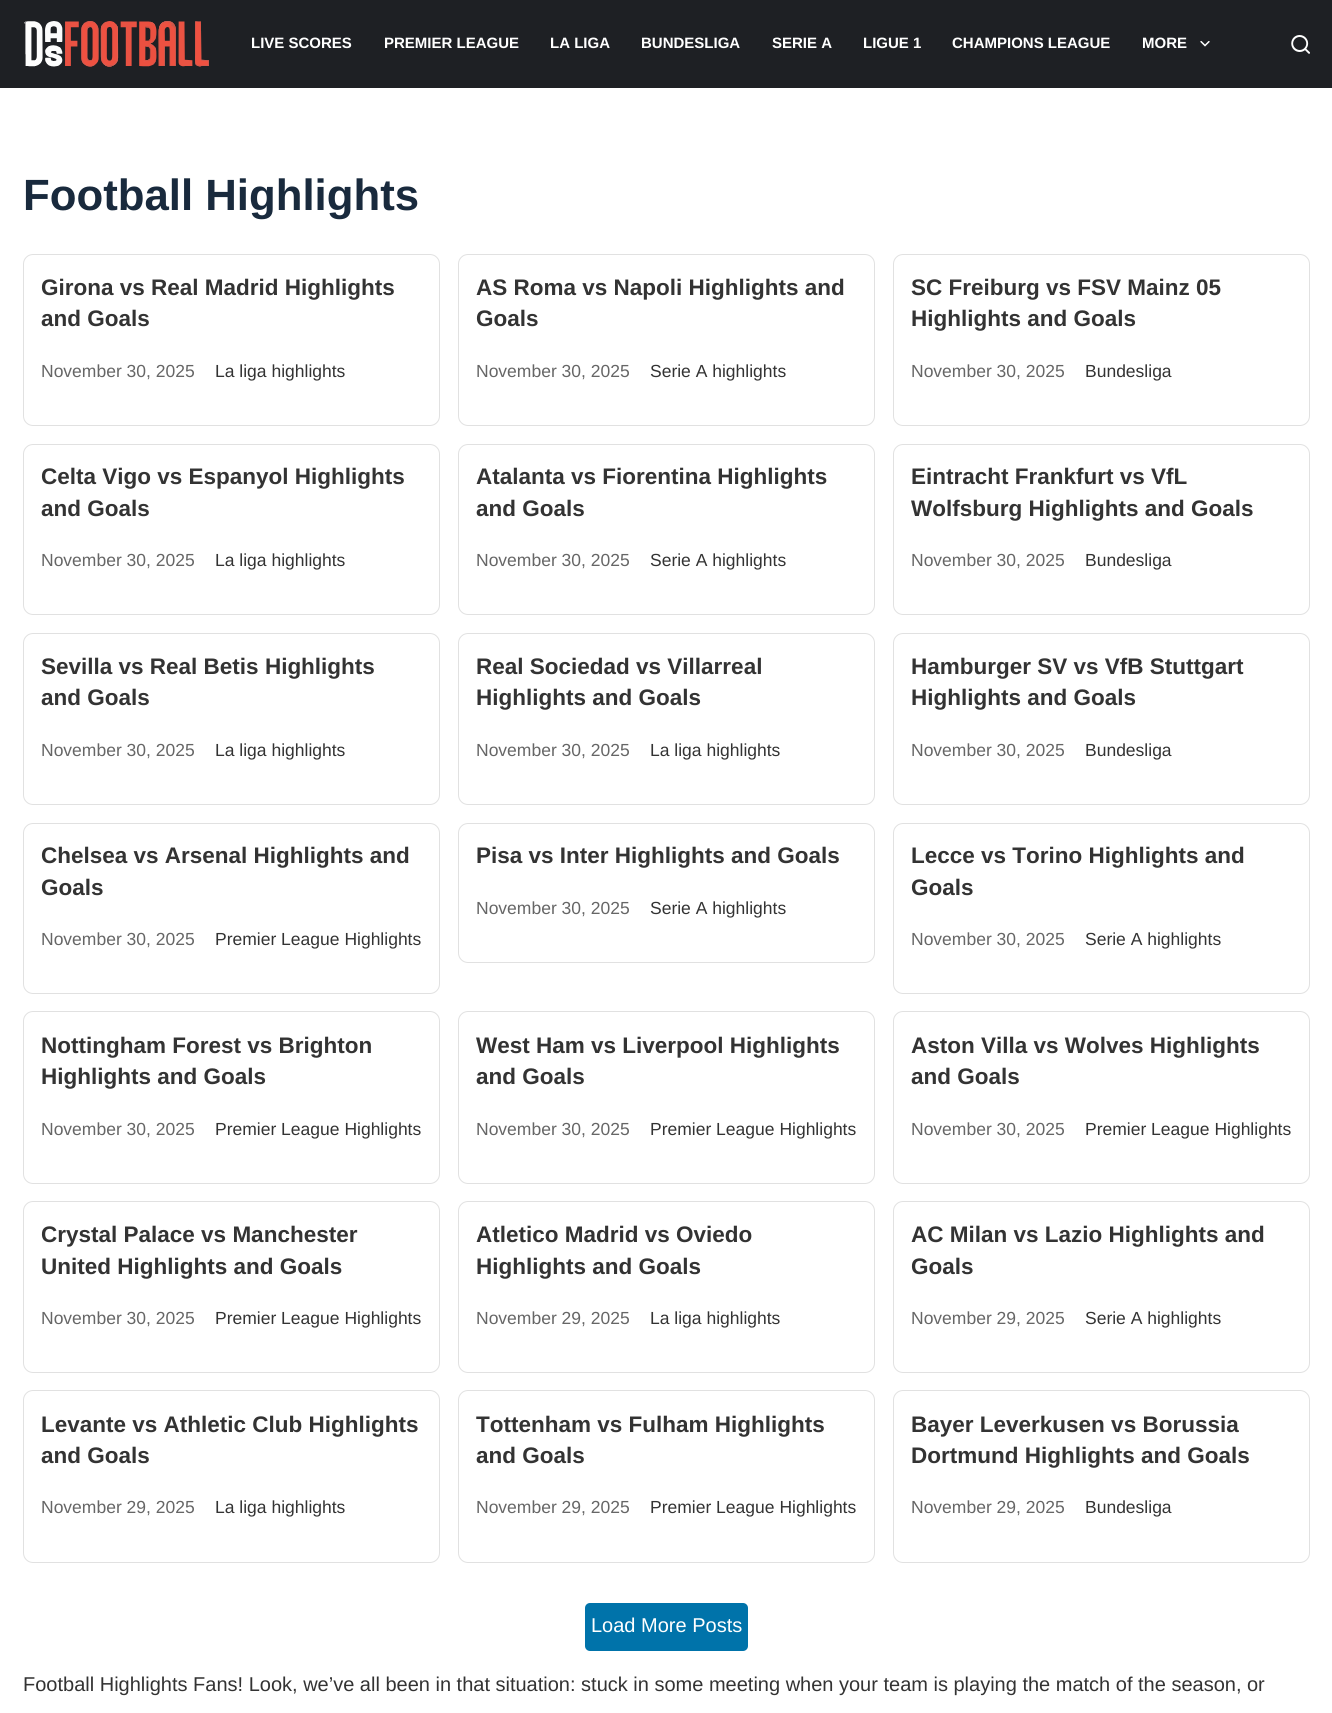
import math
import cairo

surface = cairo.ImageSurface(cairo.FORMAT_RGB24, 1332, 1713)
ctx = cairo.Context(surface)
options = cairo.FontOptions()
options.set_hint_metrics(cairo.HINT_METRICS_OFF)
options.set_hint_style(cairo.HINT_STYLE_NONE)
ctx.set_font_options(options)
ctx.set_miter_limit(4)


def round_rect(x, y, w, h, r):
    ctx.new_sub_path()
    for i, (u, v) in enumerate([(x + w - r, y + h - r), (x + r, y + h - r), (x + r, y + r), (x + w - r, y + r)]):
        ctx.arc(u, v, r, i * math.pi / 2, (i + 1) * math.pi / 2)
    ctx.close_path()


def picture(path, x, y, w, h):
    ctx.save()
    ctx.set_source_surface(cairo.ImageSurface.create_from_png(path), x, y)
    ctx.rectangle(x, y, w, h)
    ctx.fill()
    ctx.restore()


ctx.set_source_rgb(1, 1, 1)
ctx.paint()
ctx.set_source_rgb(0.118, 0.125, 0.141)
ctx.rectangle(0, 0, 1332, 88)
ctx.fill()
picture("img1.png", 24, 21, 185, 46)
ctx.select_font_face("Liberation Sans", cairo.FONT_SLANT_NORMAL, cairo.FONT_WEIGHT_BOLD)
ctx.set_font_size(15)
ctx.set_source_rgb(1, 1, 1)
ctx.move_to(251, 48)
ctx.show_text("LIVE SCORES")
ctx.move_to(384, 48)
ctx.show_text("PREMIER LEAGUE")
ctx.move_to(550, 48)
ctx.show_text("LA LIGA")
ctx.move_to(641, 48)
ctx.show_text("BUNDESLIGA")
ctx.move_to(772, 48)
ctx.show_text("SERIE A")
ctx.move_to(863, 48)
ctx.show_text("LIGUE 1")
ctx.move_to(952, 48)
ctx.show_text("CHAMPIONS LEAGUE")
ctx.move_to(1142, 48)
ctx.show_text("MORE")
picture("img2.png", 1200, 41, 10, 6)
picture("img3.png", 1291, 35, 19, 19)
ctx.set_font_size(43.75)
ctx.set_source_rgb(0.098, 0.165, 0.239)
ctx.move_to(23, 210)
ctx.show_text("Football Highlights")
round_rect(23.5, 254.5, 416, 171, 9.5)
ctx.set_source_rgb(0.882, 0.882, 0.882)
ctx.set_line_width(1)
ctx.stroke()
ctx.set_font_size(22.5)
ctx.set_source_rgb(0.2, 0.2, 0.2)
ctx.move_to(41, 295)
ctx.show_text("Girona vs Real Madrid Highlights")
ctx.move_to(41, 326)
ctx.show_text("and Goals")
ctx.select_font_face("Liberation Sans")
ctx.set_font_size(17.5)
ctx.set_source_rgb(0.4, 0.4, 0.4)
ctx.move_to(41, 377)
ctx.show_text("November 30, 2025")
ctx.set_source_rgb(0.2, 0.2, 0.2)
ctx.move_to(215, 377)
ctx.show_text("La liga highlights")
round_rect(458.5, 254.5, 416, 171, 9.5)
ctx.set_source_rgb(0.882, 0.882, 0.882)
ctx.stroke()
ctx.select_font_face("Liberation Sans", cairo.FONT_SLANT_NORMAL, cairo.FONT_WEIGHT_BOLD)
ctx.set_font_size(22.5)
ctx.set_source_rgb(0.2, 0.2, 0.2)
ctx.move_to(476, 295)
ctx.show_text("AS Roma vs Napoli Highlights and")
ctx.move_to(476, 326)
ctx.show_text("Goals")
ctx.select_font_face("Liberation Sans")
ctx.set_font_size(17.5)
ctx.set_source_rgb(0.4, 0.4, 0.4)
ctx.move_to(476, 377)
ctx.show_text("November 30, 2025")
ctx.set_source_rgb(0.2, 0.2, 0.2)
ctx.move_to(650, 377)
ctx.show_text("Serie A highlights")
round_rect(893.5, 254.5, 416, 171, 9.5)
ctx.set_source_rgb(0.882, 0.882, 0.882)
ctx.stroke()
ctx.select_font_face("Liberation Sans", cairo.FONT_SLANT_NORMAL, cairo.FONT_WEIGHT_BOLD)
ctx.set_font_size(22.5)
ctx.set_source_rgb(0.2, 0.2, 0.2)
ctx.move_to(911, 295)
ctx.show_text("SC Freiburg vs FSV Mainz 05")
ctx.move_to(911, 326)
ctx.show_text("Highlights and Goals")
ctx.select_font_face("Liberation Sans")
ctx.set_font_size(17.5)
ctx.set_source_rgb(0.4, 0.4, 0.4)
ctx.move_to(911, 377)
ctx.show_text("November 30, 2025")
ctx.set_source_rgb(0.2, 0.2, 0.2)
ctx.move_to(1085, 377)
ctx.show_text("Bundesliga")
round_rect(23.5, 444.5, 416, 170, 9.5)
ctx.set_source_rgb(0.882, 0.882, 0.882)
ctx.stroke()
ctx.select_font_face("Liberation Sans", cairo.FONT_SLANT_NORMAL, cairo.FONT_WEIGHT_BOLD)
ctx.set_font_size(22.5)
ctx.set_source_rgb(0.2, 0.2, 0.2)
ctx.move_to(41, 484)
ctx.show_text("Celta Vigo vs Espanyol Highlights")
ctx.move_to(41, 516)
ctx.show_text("and Goals")
ctx.select_font_face("Liberation Sans")
ctx.set_font_size(17.5)
ctx.set_source_rgb(0.4, 0.4, 0.4)
ctx.move_to(41, 566)
ctx.show_text("November 30, 2025")
ctx.set_source_rgb(0.2, 0.2, 0.2)
ctx.move_to(215, 566)
ctx.show_text("La liga highlights")
round_rect(458.5, 444.5, 416, 170, 9.5)
ctx.set_source_rgb(0.882, 0.882, 0.882)
ctx.stroke()
ctx.select_font_face("Liberation Sans", cairo.FONT_SLANT_NORMAL, cairo.FONT_WEIGHT_BOLD)
ctx.set_font_size(22.5)
ctx.set_source_rgb(0.2, 0.2, 0.2)
ctx.move_to(476, 484)
ctx.show_text("Atalanta vs Fiorentina Highlights")
ctx.move_to(476, 516)
ctx.show_text("and Goals")
ctx.select_font_face("Liberation Sans")
ctx.set_font_size(17.5)
ctx.set_source_rgb(0.4, 0.4, 0.4)
ctx.move_to(476, 566)
ctx.show_text("November 30, 2025")
ctx.set_source_rgb(0.2, 0.2, 0.2)
ctx.move_to(650, 566)
ctx.show_text("Serie A highlights")
round_rect(893.5, 444.5, 416, 170, 9.5)
ctx.set_source_rgb(0.882, 0.882, 0.882)
ctx.stroke()
ctx.select_font_face("Liberation Sans", cairo.FONT_SLANT_NORMAL, cairo.FONT_WEIGHT_BOLD)
ctx.set_font_size(22.5)
ctx.set_source_rgb(0.2, 0.2, 0.2)
ctx.move_to(911, 484)
ctx.show_text("Eintracht Frankfurt vs VfL")
ctx.move_to(911, 516)
ctx.show_text("Wolfsburg Highlights and Goals")
ctx.select_font_face("Liberation Sans")
ctx.set_font_size(17.5)
ctx.set_source_rgb(0.4, 0.4, 0.4)
ctx.move_to(911, 566)
ctx.show_text("November 30, 2025")
ctx.set_source_rgb(0.2, 0.2, 0.2)
ctx.move_to(1085, 566)
ctx.show_text("Bundesliga")
round_rect(23.5, 633.5, 416, 171, 9.5)
ctx.set_source_rgb(0.882, 0.882, 0.882)
ctx.stroke()
ctx.select_font_face("Liberation Sans", cairo.FONT_SLANT_NORMAL, cairo.FONT_WEIGHT_BOLD)
ctx.set_font_size(22.5)
ctx.set_source_rgb(0.2, 0.2, 0.2)
ctx.move_to(41, 674)
ctx.show_text("Sevilla vs Real Betis Highlights")
ctx.move_to(41, 705)
ctx.show_text("and Goals")
ctx.select_font_face("Liberation Sans")
ctx.set_font_size(17.5)
ctx.set_source_rgb(0.4, 0.4, 0.4)
ctx.move_to(41, 756)
ctx.show_text("November 30, 2025")
ctx.set_source_rgb(0.2, 0.2, 0.2)
ctx.move_to(215, 756)
ctx.show_text("La liga highlights")
round_rect(458.5, 633.5, 416, 171, 9.5)
ctx.set_source_rgb(0.882, 0.882, 0.882)
ctx.stroke()
ctx.select_font_face("Liberation Sans", cairo.FONT_SLANT_NORMAL, cairo.FONT_WEIGHT_BOLD)
ctx.set_font_size(22.5)
ctx.set_source_rgb(0.2, 0.2, 0.2)
ctx.move_to(476, 674)
ctx.show_text("Real Sociedad vs Villarreal")
ctx.move_to(476, 705)
ctx.show_text("Highlights and Goals")
ctx.select_font_face("Liberation Sans")
ctx.set_font_size(17.5)
ctx.set_source_rgb(0.4, 0.4, 0.4)
ctx.move_to(476, 756)
ctx.show_text("November 30, 2025")
ctx.set_source_rgb(0.2, 0.2, 0.2)
ctx.move_to(650, 756)
ctx.show_text("La liga highlights")
round_rect(893.5, 633.5, 416, 171, 9.5)
ctx.set_source_rgb(0.882, 0.882, 0.882)
ctx.stroke()
ctx.select_font_face("Liberation Sans", cairo.FONT_SLANT_NORMAL, cairo.FONT_WEIGHT_BOLD)
ctx.set_font_size(22.5)
ctx.set_source_rgb(0.2, 0.2, 0.2)
ctx.move_to(911, 674)
ctx.show_text("Hamburger SV vs VfB Stuttgart")
ctx.move_to(911, 705)
ctx.show_text("Highlights and Goals")
ctx.select_font_face("Liberation Sans")
ctx.set_font_size(17.5)
ctx.set_source_rgb(0.4, 0.4, 0.4)
ctx.move_to(911, 756)
ctx.show_text("November 30, 2025")
ctx.set_source_rgb(0.2, 0.2, 0.2)
ctx.move_to(1085, 756)
ctx.show_text("Bundesliga")
round_rect(23.5, 823.5, 416, 170, 9.5)
ctx.set_source_rgb(0.882, 0.882, 0.882)
ctx.stroke()
ctx.select_font_face("Liberation Sans", cairo.FONT_SLANT_NORMAL, cairo.FONT_WEIGHT_BOLD)
ctx.set_font_size(22.5)
ctx.set_source_rgb(0.2, 0.2, 0.2)
ctx.move_to(41, 863)
ctx.show_text("Chelsea vs Arsenal Highlights and")
ctx.move_to(41, 895)
ctx.show_text("Goals")
ctx.select_font_face("Liberation Sans")
ctx.set_font_size(17.5)
ctx.set_source_rgb(0.4, 0.4, 0.4)
ctx.move_to(41, 945)
ctx.show_text("November 30, 2025")
ctx.set_source_rgb(0.2, 0.2, 0.2)
ctx.move_to(215, 945)
ctx.show_text("Premier League Highlights")
round_rect(458.5, 823.5, 416, 139, 9.5)
ctx.set_source_rgb(0.882, 0.882, 0.882)
ctx.stroke()
ctx.select_font_face("Liberation Sans", cairo.FONT_SLANT_NORMAL, cairo.FONT_WEIGHT_BOLD)
ctx.set_font_size(22.5)
ctx.set_source_rgb(0.2, 0.2, 0.2)
ctx.move_to(476, 863)
ctx.show_text("Pisa vs Inter Highlights and Goals")
ctx.select_font_face("Liberation Sans")
ctx.set_font_size(17.5)
ctx.set_source_rgb(0.4, 0.4, 0.4)
ctx.move_to(476, 914)
ctx.show_text("November 30, 2025")
ctx.set_source_rgb(0.2, 0.2, 0.2)
ctx.move_to(650, 914)
ctx.show_text("Serie A highlights")
round_rect(893.5, 823.5, 416, 170, 9.5)
ctx.set_source_rgb(0.882, 0.882, 0.882)
ctx.stroke()
ctx.select_font_face("Liberation Sans", cairo.FONT_SLANT_NORMAL, cairo.FONT_WEIGHT_BOLD)
ctx.set_font_size(22.5)
ctx.set_source_rgb(0.2, 0.2, 0.2)
ctx.move_to(911, 863)
ctx.show_text("Lecce vs Torino Highlights and")
ctx.move_to(911, 895)
ctx.show_text("Goals")
ctx.select_font_face("Liberation Sans")
ctx.set_font_size(17.5)
ctx.set_source_rgb(0.4, 0.4, 0.4)
ctx.move_to(911, 945)
ctx.show_text("November 30, 2025")
ctx.set_source_rgb(0.2, 0.2, 0.2)
ctx.move_to(1085, 945)
ctx.show_text("Serie A highlights")
round_rect(23.5, 1011.5, 416, 172, 9.5)
ctx.set_source_rgb(0.882, 0.882, 0.882)
ctx.stroke()
ctx.select_font_face("Liberation Sans", cairo.FONT_SLANT_NORMAL, cairo.FONT_WEIGHT_BOLD)
ctx.set_font_size(22.5)
ctx.set_source_rgb(0.2, 0.2, 0.2)
ctx.move_to(41, 1053)
ctx.show_text("Nottingham Forest vs Brighton")
ctx.move_to(41, 1084)
ctx.show_text("Highlights and Goals")
ctx.select_font_face("Liberation Sans")
ctx.set_font_size(17.5)
ctx.set_source_rgb(0.4, 0.4, 0.4)
ctx.move_to(41, 1135)
ctx.show_text("November 30, 2025")
ctx.set_source_rgb(0.2, 0.2, 0.2)
ctx.move_to(215, 1135)
ctx.show_text("Premier League Highlights")
round_rect(458.5, 1011.5, 416, 172, 9.5)
ctx.set_source_rgb(0.882, 0.882, 0.882)
ctx.stroke()
ctx.select_font_face("Liberation Sans", cairo.FONT_SLANT_NORMAL, cairo.FONT_WEIGHT_BOLD)
ctx.set_font_size(22.5)
ctx.set_source_rgb(0.2, 0.2, 0.2)
ctx.move_to(476, 1053)
ctx.show_text("West Ham vs Liverpool Highlights")
ctx.move_to(476, 1084)
ctx.show_text("and Goals")
ctx.select_font_face("Liberation Sans")
ctx.set_font_size(17.5)
ctx.set_source_rgb(0.4, 0.4, 0.4)
ctx.move_to(476, 1135)
ctx.show_text("November 30, 2025")
ctx.set_source_rgb(0.2, 0.2, 0.2)
ctx.move_to(650, 1135)
ctx.show_text("Premier League Highlights")
round_rect(893.5, 1011.5, 416, 172, 9.5)
ctx.set_source_rgb(0.882, 0.882, 0.882)
ctx.stroke()
ctx.select_font_face("Liberation Sans", cairo.FONT_SLANT_NORMAL, cairo.FONT_WEIGHT_BOLD)
ctx.set_font_size(22.5)
ctx.set_source_rgb(0.2, 0.2, 0.2)
ctx.move_to(911, 1053)
ctx.show_text("Aston Villa vs Wolves Highlights")
ctx.move_to(911, 1084)
ctx.show_text("and Goals")
ctx.select_font_face("Liberation Sans")
ctx.set_font_size(17.5)
ctx.set_source_rgb(0.4, 0.4, 0.4)
ctx.move_to(911, 1135)
ctx.show_text("November 30, 2025")
ctx.set_source_rgb(0.2, 0.2, 0.2)
ctx.move_to(1085, 1135)
ctx.show_text("Premier League Highlights")
round_rect(23.5, 1201.5, 416, 171, 9.5)
ctx.set_source_rgb(0.882, 0.882, 0.882)
ctx.stroke()
ctx.select_font_face("Liberation Sans", cairo.FONT_SLANT_NORMAL, cairo.FONT_WEIGHT_BOLD)
ctx.set_font_size(22.5)
ctx.set_source_rgb(0.2, 0.2, 0.2)
ctx.move_to(41, 1242)
ctx.show_text("Crystal Palace vs Manchester")
ctx.move_to(41, 1274)
ctx.show_text("United Highlights and Goals")
ctx.select_font_face("Liberation Sans")
ctx.set_font_size(17.5)
ctx.set_source_rgb(0.4, 0.4, 0.4)
ctx.move_to(41, 1324)
ctx.show_text("November 30, 2025")
ctx.set_source_rgb(0.2, 0.2, 0.2)
ctx.move_to(215, 1324)
ctx.show_text("Premier League Highlights")
round_rect(458.5, 1201.5, 416, 171, 9.5)
ctx.set_source_rgb(0.882, 0.882, 0.882)
ctx.stroke()
ctx.select_font_face("Liberation Sans", cairo.FONT_SLANT_NORMAL, cairo.FONT_WEIGHT_BOLD)
ctx.set_font_size(22.5)
ctx.set_source_rgb(0.2, 0.2, 0.2)
ctx.move_to(476, 1242)
ctx.show_text("Atletico Madrid vs Oviedo")
ctx.move_to(476, 1274)
ctx.show_text("Highlights and Goals")
ctx.select_font_face("Liberation Sans")
ctx.set_font_size(17.5)
ctx.set_source_rgb(0.4, 0.4, 0.4)
ctx.move_to(476, 1324)
ctx.show_text("November 29, 2025")
ctx.set_source_rgb(0.2, 0.2, 0.2)
ctx.move_to(650, 1324)
ctx.show_text("La liga highlights")
round_rect(893.5, 1201.5, 416, 171, 9.5)
ctx.set_source_rgb(0.882, 0.882, 0.882)
ctx.stroke()
ctx.select_font_face("Liberation Sans", cairo.FONT_SLANT_NORMAL, cairo.FONT_WEIGHT_BOLD)
ctx.set_font_size(22.5)
ctx.set_source_rgb(0.2, 0.2, 0.2)
ctx.move_to(911, 1242)
ctx.show_text("AC Milan vs Lazio Highlights and")
ctx.move_to(911, 1274)
ctx.show_text("Goals")
ctx.select_font_face("Liberation Sans")
ctx.set_font_size(17.5)
ctx.set_source_rgb(0.4, 0.4, 0.4)
ctx.move_to(911, 1324)
ctx.show_text("November 29, 2025")
ctx.set_source_rgb(0.2, 0.2, 0.2)
ctx.move_to(1085, 1324)
ctx.show_text("Serie A highlights")
round_rect(23.5, 1390.5, 416, 172, 9.5)
ctx.set_source_rgb(0.882, 0.882, 0.882)
ctx.stroke()
ctx.select_font_face("Liberation Sans", cairo.FONT_SLANT_NORMAL, cairo.FONT_WEIGHT_BOLD)
ctx.set_font_size(22.5)
ctx.set_source_rgb(0.2, 0.2, 0.2)
ctx.move_to(41, 1432)
ctx.show_text("Levante vs Athletic Club Highlights")
ctx.move_to(41, 1463)
ctx.show_text("and Goals")
ctx.select_font_face("Liberation Sans")
ctx.set_font_size(17.5)
ctx.set_source_rgb(0.4, 0.4, 0.4)
ctx.move_to(41, 1513)
ctx.show_text("November 29, 2025")
ctx.set_source_rgb(0.2, 0.2, 0.2)
ctx.move_to(215, 1513)
ctx.show_text("La liga highlights")
round_rect(458.5, 1390.5, 416, 172, 9.5)
ctx.set_source_rgb(0.882, 0.882, 0.882)
ctx.stroke()
ctx.select_font_face("Liberation Sans", cairo.FONT_SLANT_NORMAL, cairo.FONT_WEIGHT_BOLD)
ctx.set_font_size(22.5)
ctx.set_source_rgb(0.2, 0.2, 0.2)
ctx.move_to(476, 1432)
ctx.show_text("Tottenham vs Fulham Highlights")
ctx.move_to(476, 1463)
ctx.show_text("and Goals")
ctx.select_font_face("Liberation Sans")
ctx.set_font_size(17.5)
ctx.set_source_rgb(0.4, 0.4, 0.4)
ctx.move_to(476, 1513)
ctx.show_text("November 29, 2025")
ctx.set_source_rgb(0.2, 0.2, 0.2)
ctx.move_to(650, 1513)
ctx.show_text("Premier League Highlights")
round_rect(893.5, 1390.5, 416, 172, 9.5)
ctx.set_source_rgb(0.882, 0.882, 0.882)
ctx.stroke()
ctx.select_font_face("Liberation Sans", cairo.FONT_SLANT_NORMAL, cairo.FONT_WEIGHT_BOLD)
ctx.set_font_size(22.5)
ctx.set_source_rgb(0.2, 0.2, 0.2)
ctx.move_to(911, 1432)
ctx.show_text("Bayer Leverkusen vs Borussia")
ctx.move_to(911, 1463)
ctx.show_text("Dortmund Highlights and Goals")
ctx.select_font_face("Liberation Sans")
ctx.set_font_size(17.5)
ctx.set_source_rgb(0.4, 0.4, 0.4)
ctx.move_to(911, 1513)
ctx.show_text("November 29, 2025")
ctx.set_source_rgb(0.2, 0.2, 0.2)
ctx.move_to(1085, 1513)
ctx.show_text("Bundesliga")
ctx.set_source_rgb(0, 0.451, 0.667)
round_rect(585, 1603, 163, 48, 5)
ctx.fill()
ctx.set_font_size(20)
ctx.set_source_rgb(1, 1, 1)
ctx.move_to(591, 1632)
ctx.show_text("Load More Posts")
ctx.set_source_rgb(0.2, 0.2, 0.2)
ctx.move_to(23, 1691)
ctx.show_text("Football Highlights Fans! Look, we’ve all been in that situation: stuck in some meeting when your team is playing the match of the season, or")
surface.write_to_png("page.png")
